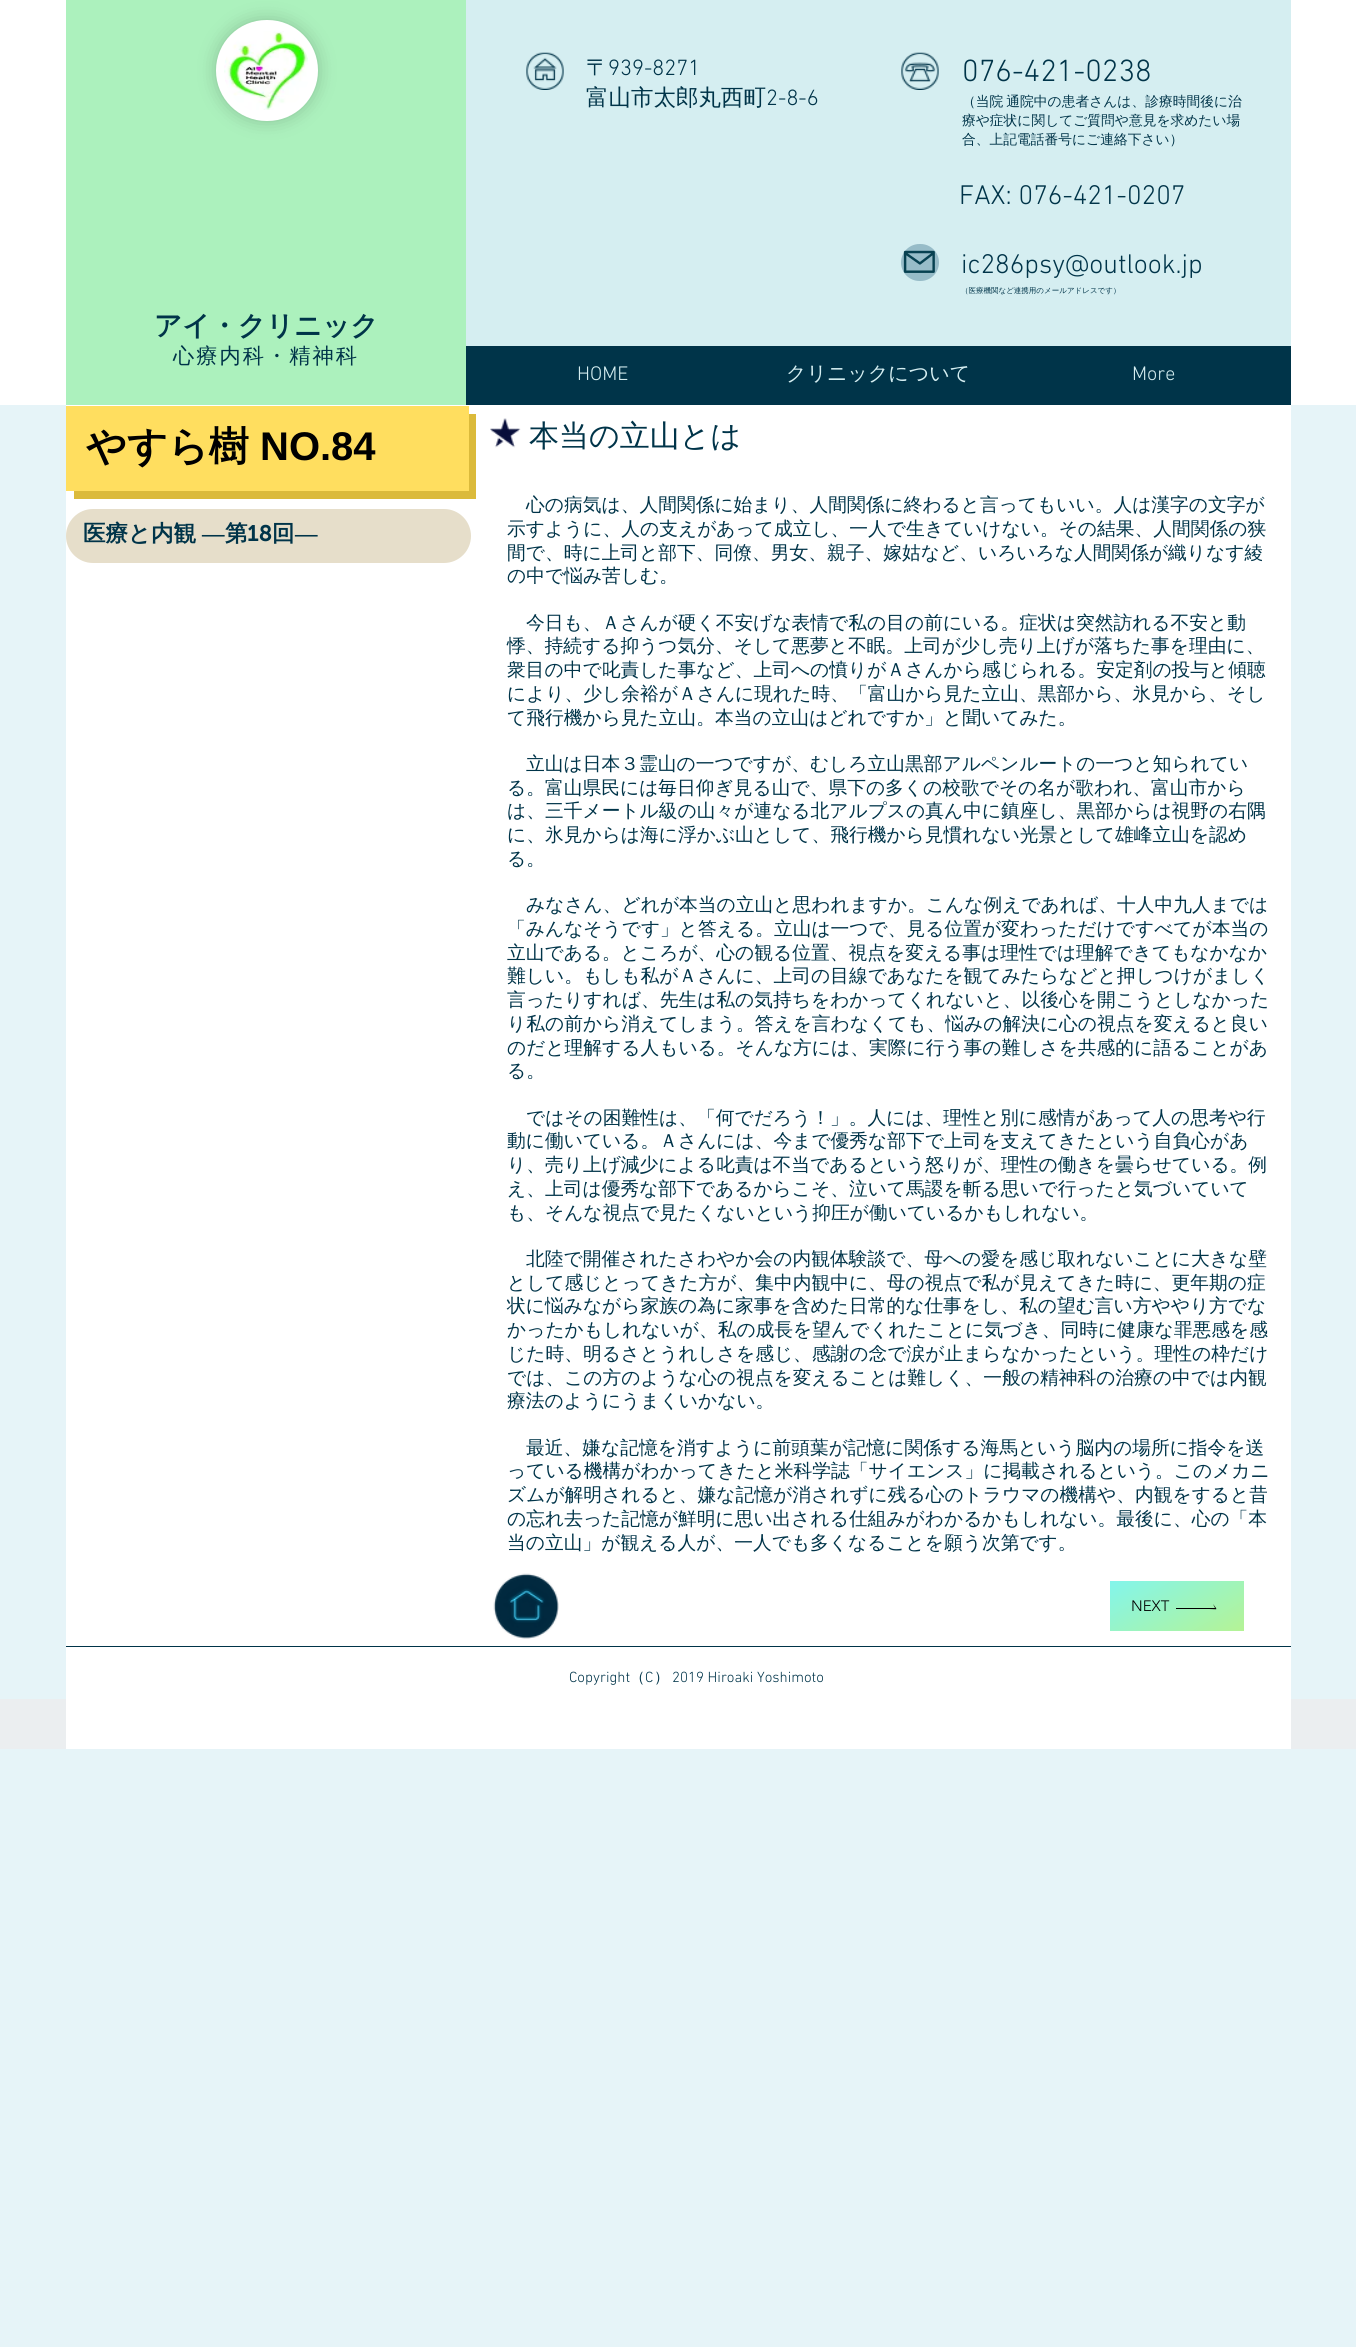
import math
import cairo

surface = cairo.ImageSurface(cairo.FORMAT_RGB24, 1356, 2347)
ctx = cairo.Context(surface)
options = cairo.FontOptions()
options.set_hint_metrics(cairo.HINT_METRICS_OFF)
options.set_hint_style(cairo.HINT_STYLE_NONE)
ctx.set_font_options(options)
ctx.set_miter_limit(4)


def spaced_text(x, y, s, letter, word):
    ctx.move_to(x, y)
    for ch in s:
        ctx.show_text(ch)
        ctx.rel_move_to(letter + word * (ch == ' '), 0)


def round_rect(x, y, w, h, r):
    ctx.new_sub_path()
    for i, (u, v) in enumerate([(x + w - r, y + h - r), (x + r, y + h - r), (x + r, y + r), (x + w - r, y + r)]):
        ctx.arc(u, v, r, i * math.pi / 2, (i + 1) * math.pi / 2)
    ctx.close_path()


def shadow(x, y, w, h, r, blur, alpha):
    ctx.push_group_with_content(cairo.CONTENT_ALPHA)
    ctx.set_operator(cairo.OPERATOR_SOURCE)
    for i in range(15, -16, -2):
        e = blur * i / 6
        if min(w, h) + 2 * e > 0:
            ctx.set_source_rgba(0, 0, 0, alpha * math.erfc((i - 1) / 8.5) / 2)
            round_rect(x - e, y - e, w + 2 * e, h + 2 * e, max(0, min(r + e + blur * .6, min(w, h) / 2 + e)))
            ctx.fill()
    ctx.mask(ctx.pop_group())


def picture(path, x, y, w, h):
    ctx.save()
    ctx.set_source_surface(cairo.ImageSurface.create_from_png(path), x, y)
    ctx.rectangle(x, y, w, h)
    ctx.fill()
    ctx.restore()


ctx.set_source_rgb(0.902, 0.957, 0.969)
ctx.paint()
ctx.set_source_rgb(1, 1, 1)
ctx.rectangle(0, 0, 1356, 405)
ctx.fill()
ctx.set_source_rgb(0.675, 0.945, 0.741)
ctx.rectangle(66, 0, 400, 405)
ctx.fill()
ctx.set_source_rgb(0, 0, 0)
shadow(216, 20, 102, 101, 50.5, 9, 0.2)
ctx.set_source_rgb(1, 1, 1)
round_rect(220, 24, 94, 93, 46.5)
ctx.fill_preserve()
ctx.set_line_width(8)
ctx.stroke()
picture("img1.png", 224, 31, 84, 79)
ctx.set_source_rgb(0.835, 0.933, 0.945)
ctx.rectangle(466, 0, 825, 346)
ctx.fill()
picture("img2.png", 526, 52, 38, 38)
ctx.select_font_face("WenQuanYi Zen Hei Medium")
ctx.set_font_size(22.5)
ctx.set_source_rgb(0, 0.204, 0.286)
ctx.move_to(586, 75)
ctx.show_text("〒")
ctx.select_font_face("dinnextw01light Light")
ctx.move_to(608, 75)
ctx.show_text("939-8271")
ctx.select_font_face("WenQuanYi Zen Hei Medium")
ctx.move_to(586, 105)
ctx.show_text("富山市太郎丸西町")
ctx.select_font_face("dinnextw01light Light")
ctx.move_to(766, 105)
ctx.show_text("2-8-6")
picture("img3.png", 901, 52, 38, 38)
ctx.set_font_size(31.25)
ctx.move_to(962, 81)
ctx.show_text("076-421-0238")
ctx.select_font_face("WenQuanYi Zen Hei Medium")
ctx.set_font_size(13.75)
spaced_text(962, 106, "（当院 通院中の患者さんは、診療時間後に治", 0, -1)
ctx.move_to(962, 125)
ctx.show_text("療や症状に関してご質問や意見を求めたい場")
ctx.move_to(962, 144)
ctx.show_text("合、上記電話番号にご連絡下さい）")
ctx.select_font_face("dinnextw01light Light")
ctx.set_font_size(27.5)
ctx.move_to(959, 204)
ctx.show_text("FAX: 076-421-0207")
ctx.set_source_rgb(0.592, 0.737, 0.784)
round_rect(901, 244, 38, 37, 18.5)
ctx.fill()
picture("img4.png", 903, 250, 32, 23)
ctx.set_source_rgb(0, 0.204, 0.286)
ctx.move_to(961, 273)
ctx.show_text("ic286psy@outlook.jp")
ctx.select_font_face("WenQuanYi Zen Hei Medium")
ctx.set_font_size(7.5)
ctx.move_to(961, 293)
ctx.show_text("（医療機関など連携用のメールアドレスです）")
ctx.select_font_face("WenQuanYi Zen Hei", cairo.FONT_SLANT_NORMAL, cairo.FONT_WEIGHT_BOLD)
ctx.set_font_size(27.5)
ctx.move_to(154, 335)
ctx.show_text("アイ・クリニック")
ctx.select_font_face("WenQuanYi Zen Hei Medium")
ctx.set_font_size(21.25)
spaced_text(173, 363, "心療内科・精神科", 2, 0)
ctx.rectangle(466, 346, 825, 59)
ctx.fill()
ctx.select_font_face("dinnextw01light Light")
ctx.set_font_size(20)
ctx.set_source_rgb(0.835, 0.933, 0.945)
ctx.move_to(577, 380)
ctx.show_text("HOME")
ctx.select_font_face("WenQuanYi Zen Hei Medium")
ctx.move_to(786, 380)
ctx.show_text("クリニックについて")
ctx.select_font_face("dinnextw01light Light")
ctx.move_to(1132, 380)
ctx.show_text("More")
ctx.set_source_rgb(1, 1, 1)
ctx.rectangle(66, 405, 1225, 1294)
ctx.fill()
ctx.set_source_rgb(0.859, 0.729, 0.231)
ctx.new_path()
ctx.move_to(74, 491)
ctx.line_to(74, 499)
ctx.line_to(476, 499)
ctx.line_to(476, 414)
ctx.line_to(469, 414)
ctx.line_to(469, 491)
ctx.close_path()
ctx.fill()
ctx.set_source_rgb(1, 0.871, 0.373)
ctx.rectangle(66, 406, 403, 85)
ctx.fill()
ctx.select_font_face("WenQuanYi Zen Hei", cairo.FONT_SLANT_NORMAL, cairo.FONT_WEIGHT_BOLD)
ctx.set_font_size(40)
ctx.set_source_rgb(0, 0, 0)
ctx.move_to(86, 460)
ctx.show_text("やすら樹")
ctx.select_font_face("Liberation Sans", cairo.FONT_SLANT_NORMAL, cairo.FONT_WEIGHT_BOLD)
ctx.move_to(260, 460)
ctx.show_text("NO.84")
picture("img5.png", 490, 418, 31, 30)
ctx.select_font_face("WenQuanYi Zen Hei Medium")
ctx.set_font_size(30)
ctx.set_source_rgb(0, 0.204, 0.286)
ctx.move_to(529, 446)
ctx.show_text("本当の立山とは")
ctx.set_font_size(18.75)
ctx.move_to(526, 511)
ctx.show_text("心の病気は、人間関係に始まり、人間関係に終わると言ってもいい。人は漢字の文字が")
ctx.move_to(507, 535)
ctx.show_text("示すように、人の支えがあって成立し、一人で生きていけない。その結果、人間関係の狭")
ctx.move_to(507, 559)
ctx.show_text("間で、時に上司と部下、同僚、男女、親子、嫁姑など、いろいろな人間関係が織りなす綾")
ctx.move_to(507, 582)
ctx.show_text("の中で悩み苦しむ。")
ctx.move_to(526, 629)
ctx.show_text("今日も、Ａさんが硬く不安げな表情で私の目の前にいる。症状は突然訪れる不安と動")
ctx.move_to(507, 652)
ctx.show_text("悸、持続する抑うつ気分、そして悪夢と不眠。上司が少し売り上げが落ちた事を理由に、")
ctx.move_to(507, 676)
ctx.show_text("衆目の中で叱責した事など、上司への憤りがＡさんから感じられる。安定剤の投与と傾聴")
ctx.move_to(507, 700)
ctx.show_text("により、少し余裕がＡさんに現れた時、「富山から見た立山、黒部から、氷見から、そし")
ctx.move_to(507, 724)
ctx.show_text("て飛行機から見た立山。本当の立山はどれですか」と聞いてみた。")
ctx.move_to(526, 770)
ctx.show_text("立山は日本３霊山の一つですが、むしろ立山黒部アルペンルートの一つと知られてい")
ctx.move_to(507, 794)
ctx.show_text("る。富山県民には毎日仰ぎ見る山で、県下の多くの校歌でその名が歌われ、富山市から")
ctx.move_to(507, 817)
ctx.show_text("は、三千メートル級の山々が連なる北アルプスの真ん中に鎮座し、黒部からは視野の右隅")
ctx.move_to(507, 841)
ctx.show_text("に、氷見からは海に浮かぶ山として、飛行機から見慣れない光景として雄峰立山を認め")
ctx.move_to(507, 865)
ctx.show_text("る。")
ctx.move_to(526, 911)
ctx.show_text("みなさん、どれが本当の立山と思われますか。こんな例えであれば、十人中九人までは")
ctx.move_to(507, 935)
ctx.show_text("「みんなそうです」と答える。立山は一つで、見る位置が変わっただけですべてが本当の")
ctx.move_to(507, 959)
ctx.show_text("立山である。ところが、心の観る位置、視点を変える事は理性では理解できてもなかなか")
ctx.move_to(507, 982)
ctx.show_text("難しい。もしも私がＡさんに、上司の目線であなたを観てみたらなどと押しつけがましく")
ctx.move_to(507, 1006)
ctx.show_text("言ったりすれば、先生は私の気持ちをわかってくれないと、以後心を開こうとしなかった")
ctx.move_to(507, 1030)
ctx.show_text("り私の前から消えてしまう。答えを言わなくても、悩みの解決に心の視点を変えると良い")
ctx.move_to(507, 1054)
ctx.show_text("のだと理解する人もいる。そんな方には、実際に行う事の難しさを共感的に語ることがあ")
ctx.move_to(507, 1077)
ctx.show_text("る。")
ctx.move_to(526, 1124)
ctx.show_text("ではその困難性は、「何でだろう！」。人には、理性と別に感情があって人の思考や行")
ctx.move_to(507, 1147)
ctx.show_text("動に働いている。Ａさんには、今まで優秀な部下で上司を支えてきたという自負心があ")
ctx.move_to(507, 1171)
ctx.show_text("り、売り上げ減少による叱責は不当であるという怒りが、理性の働きを曇らせている。例")
ctx.move_to(507, 1195)
ctx.show_text("え、上司は優秀な部下であるからこそ、泣いて馬謖を斬る思いで行ったと気づいていて")
ctx.move_to(507, 1219)
ctx.show_text("も、そんな視点で見たくないという抑圧が働いているかもしれない。")
ctx.move_to(526, 1265)
ctx.show_text("北陸で開催されたさわやか会の内観体験談で、母への愛を感じ取れないことに大きな壁")
ctx.move_to(507, 1289)
ctx.show_text("として感じとってきた方が、集中内観中に、母の視点で私が見えてきた時に、更年期の症")
ctx.move_to(507, 1312)
ctx.show_text("状に悩みながら家族の為に家事を含めた日常的な仕事をし、私の望む言い方ややり方でな")
ctx.move_to(507, 1336)
ctx.show_text("かったかもしれないが、私の成長を望んでくれたことに気づき、同時に健康な罪悪感を感")
ctx.move_to(507, 1360)
ctx.show_text("じた時、明るさとうれしさを感じ、感謝の念で涙が止まらなかったという。理性の枠だけ")
ctx.move_to(507, 1384)
ctx.show_text("では、この方のような心の視点を変えることは難しく、一般の精神科の治療の中では内観")
ctx.move_to(507, 1407)
ctx.show_text("療法のようにうまくいかない。")
ctx.move_to(526, 1454)
ctx.show_text("最近、嫌な記憶を消すように前頭葉が記憶に関係する海馬という脳内の場所に指令を送")
ctx.move_to(507, 1477)
ctx.show_text("っている機構がわかってきたと米科学誌「サイエンス」に掲載されるという。このメカニ")
ctx.move_to(507, 1501)
ctx.show_text("ズムが解明されると、嫌な記憶が消されずに残る心のトラウマの機構や、内観をすると昔")
ctx.move_to(507, 1525)
ctx.show_text("の忘れ去った記憶が鮮明に思い出される仕組みがわかるかもしれない。最後に、心の「本")
ctx.move_to(507, 1549)
ctx.show_text("当の立山」が観える人が、一人でも多くなることを願う次第です。")
ctx.set_source_rgb(0.902, 0.871, 0.792)
round_rect(66, 509, 405, 54, 27)
ctx.fill()
ctx.select_font_face("WenQuanYi Zen Hei", cairo.FONT_SLANT_NORMAL, cairo.FONT_WEIGHT_BOLD)
ctx.set_font_size(22.5)
ctx.set_source_rgb(0, 0.204, 0.286)
ctx.move_to(83, 541)
ctx.show_text("医療と内観")
ctx.select_font_face("Liberation Serif", cairo.FONT_SLANT_NORMAL, cairo.FONT_WEIGHT_BOLD)
ctx.move_to(202, 541)
ctx.show_text("―")
ctx.select_font_face("WenQuanYi Zen Hei", cairo.FONT_SLANT_NORMAL, cairo.FONT_WEIGHT_BOLD)
ctx.move_to(225, 541)
ctx.show_text("第")
ctx.select_font_face("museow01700 SemiBold")
ctx.move_to(247, 541)
ctx.show_text("18")
ctx.select_font_face("WenQuanYi Zen Hei", cairo.FONT_SLANT_NORMAL, cairo.FONT_WEIGHT_BOLD)
ctx.move_to(272, 541)
ctx.show_text("回")
ctx.select_font_face("Liberation Serif", cairo.FONT_SLANT_NORMAL, cairo.FONT_WEIGHT_BOLD)
ctx.move_to(295, 541)
ctx.show_text("―")
picture("img6.png", 493, 1573, 66, 66)
gradient = cairo.LinearGradient(1149, 1559, 1204, 1654)
gradient.add_color_stop_rgba(0, 0.514, 0.961, 0.922, 1)
gradient.add_color_stop_rgba(1, 0.71, 0.953, 0.584, 1)
ctx.set_source(gradient)
ctx.rectangle(1110, 1581, 134, 50)
ctx.fill()
ctx.select_font_face("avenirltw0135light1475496 Light")
ctx.set_font_size(15)
ctx.set_source_rgb(0, 0, 0)
ctx.move_to(1131, 1611)
ctx.show_text("NEXT")
ctx.set_fill_rule(cairo.FILL_RULE_EVEN_ODD)
ctx.new_path()
ctx.move_to(1213, 1604)
ctx.curve_to(1218, 1611, 1218, 1609, 1209, 1609)
ctx.line_to(1176, 1609)
ctx.line_to(1176, 1608)
ctx.line_to(1215, 1608)
ctx.close_path()
ctx.fill()
ctx.set_source_rgb(0, 0.204, 0.286)
ctx.rectangle(66, 1646, 1225, 1)
ctx.fill()
ctx.select_font_face("dinnextw01light Light")
ctx.move_to(569, 1682)
ctx.show_text("Copyright")
ctx.select_font_face("WenQuanYi Zen Hei Medium")
ctx.move_to(630, 1682)
ctx.show_text("（")
ctx.select_font_face("dinnextw01light Light")
ctx.move_to(645, 1682)
ctx.show_text("C")
ctx.select_font_face("WenQuanYi Zen Hei Medium")
ctx.move_to(654, 1682)
ctx.show_text("）")
ctx.select_font_face("dinnextw01light Light")
ctx.move_to(672, 1682)
ctx.show_text("2019 Hiroaki Yoshimoto")
ctx.set_source_rgb(0.918, 0.933, 0.941)
ctx.rectangle(0, 1699, 1356, 50)
ctx.fill()
ctx.set_source_rgb(1, 1, 1)
ctx.rectangle(66, 1699, 1225, 50)
ctx.fill()
surface.write_to_png("page.png")
